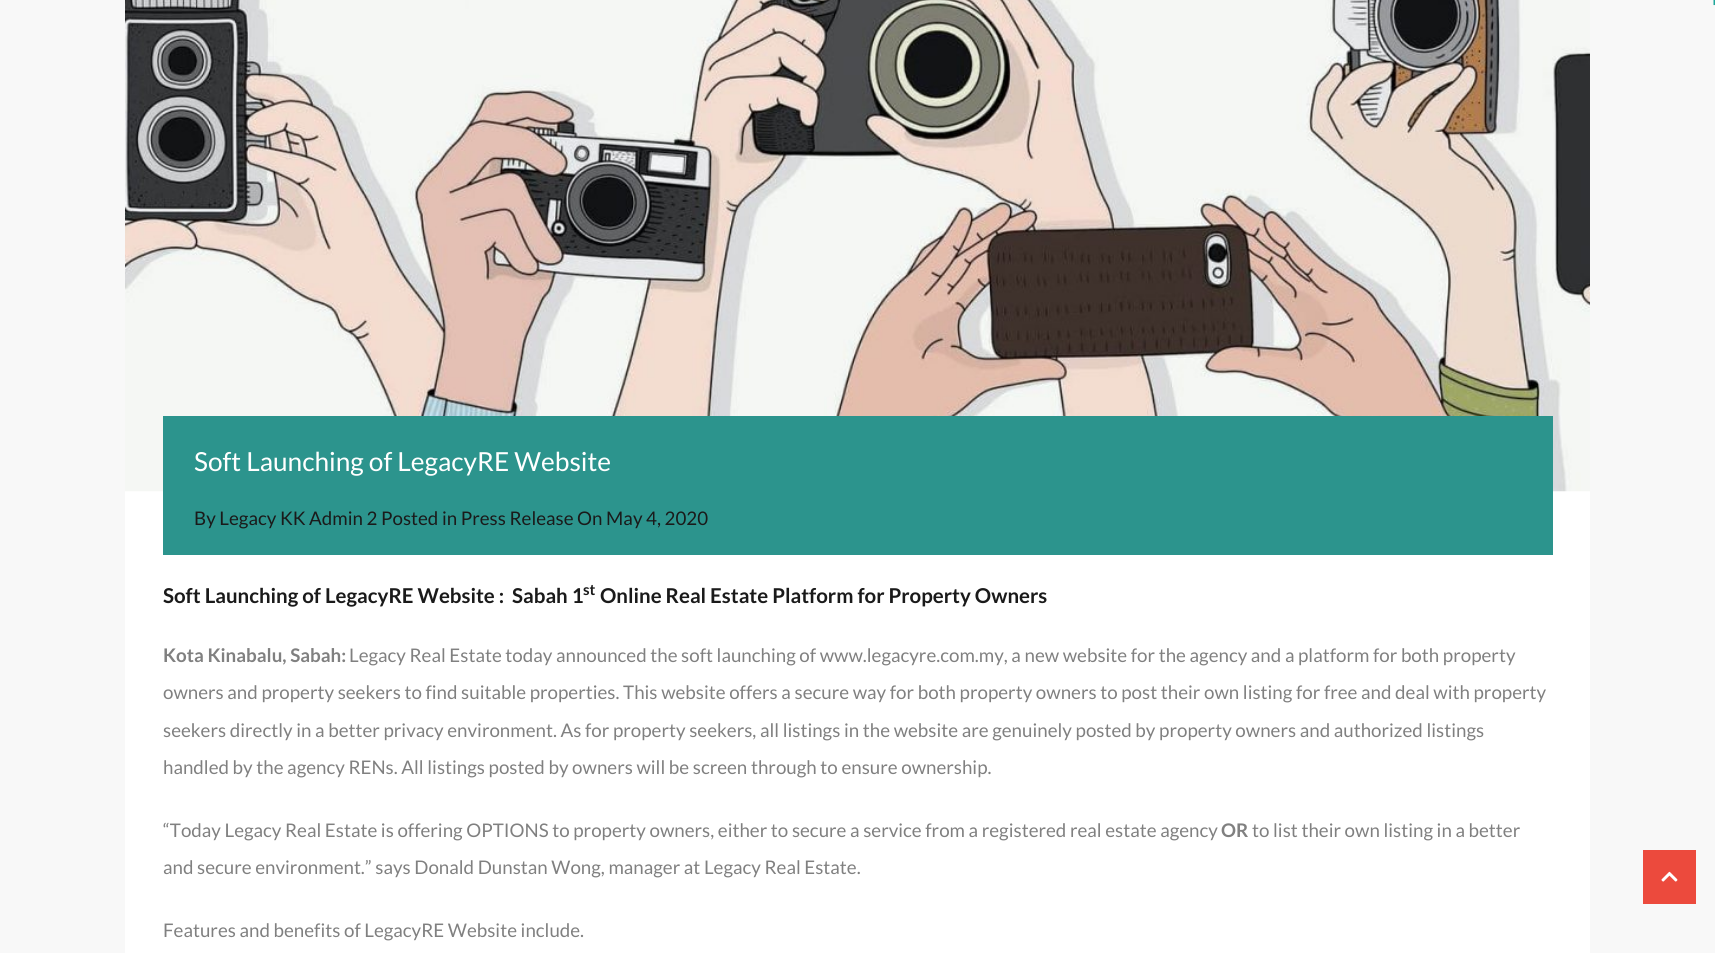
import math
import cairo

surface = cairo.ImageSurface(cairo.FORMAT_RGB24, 1715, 953)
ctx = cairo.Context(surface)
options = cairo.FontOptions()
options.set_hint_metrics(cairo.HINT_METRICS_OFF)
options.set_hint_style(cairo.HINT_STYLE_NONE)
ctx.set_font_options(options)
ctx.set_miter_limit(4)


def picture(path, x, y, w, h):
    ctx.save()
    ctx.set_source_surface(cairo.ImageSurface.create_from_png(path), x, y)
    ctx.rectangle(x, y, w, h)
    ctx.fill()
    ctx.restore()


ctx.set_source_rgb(0.969, 0.969, 0.969)
ctx.paint()
ctx.new_path()
ctx.move_to(1713.5, 2.5)
ctx.line_to(1715, 2.5)
ctx.set_source_rgb(0.118, 0.651, 0.604)
ctx.set_line_width(5.1)
ctx.stroke()
ctx.set_source_rgb(1, 1, 1)
ctx.rectangle(125, 491, 1465, 462)
ctx.fill()
picture("img1.png", 125, 0, 1465, 492)
ctx.set_source_rgb(0.173, 0.58, 0.553)
ctx.rectangle(163, 416, 1390, 139)
ctx.fill()
ctx.select_font_face("Lato")
ctx.set_font_size(26.25)
ctx.set_source_rgb(1, 1, 1)
ctx.move_to(194, 471)
ctx.show_text("Soft Launching of LegacyRE Website")
ctx.set_font_size(18.75)
ctx.set_source_rgb(0.102, 0.102, 0.102)
ctx.move_to(194, 525)
ctx.show_text("By Legacy KK Admin 2 Posted in Press Release On May 4, 2020")
ctx.select_font_face("Lato", cairo.FONT_SLANT_NORMAL, cairo.FONT_WEIGHT_BOLD)
ctx.set_font_size(20.45)
ctx.move_to(163, 603)
ctx.show_text("Soft Launching of LegacyRE Website :  Sabah 1")
ctx.set_font_size(15)
ctx.move_to(583, 595)
ctx.show_text("st")
ctx.set_font_size(20.45)
ctx.move_to(600, 603)
ctx.show_text("Online Real Estate Platform for Property Owners")
ctx.set_font_size(18.75)
ctx.set_source_rgb(0.502, 0.502, 0.502)
ctx.move_to(163, 662)
ctx.show_text("Kota Kinabalu, Sabah:")
ctx.select_font_face("Lato")
ctx.move_to(349, 662)
ctx.show_text("Legacy Real Estate today announced the soft launching of www.legacyre.com.my, a new website for the agency and a platform for both property")
ctx.move_to(163, 699)
ctx.show_text("owners and property seekers to find suitable properties. This website offers a secure way for both property owners to post their own listing for free and deal with property")
ctx.move_to(163, 737)
ctx.show_text("seekers directly in a better privacy environment. As for property seekers, all listings in the website are genuinely posted by property owners and authorized listings")
ctx.move_to(163, 774)
ctx.show_text("handled by the agency RENs. All listings posted by owners will be screen through to ensure ownership.")
ctx.move_to(163, 837)
ctx.show_text("“Today Legacy Real Estate is offering OPTIONS to property owners, either to secure a service from a registered real estate agency")
ctx.select_font_face("Lato", cairo.FONT_SLANT_NORMAL, cairo.FONT_WEIGHT_BOLD)
ctx.move_to(1221, 837)
ctx.show_text("OR")
ctx.select_font_face("Lato")
ctx.move_to(1252, 837)
ctx.show_text("to list their own listing in a better")
ctx.move_to(163, 874)
ctx.show_text("and secure environment.” says Donald Dunstan Wong, manager at Legacy Real Estate.")
ctx.move_to(163, 937)
ctx.show_text("Features and benefits of LegacyRE Website include.")
ctx.set_source_rgb(0.922, 0.29, 0.239)
ctx.rectangle(1643, 850, 53, 54)
ctx.fill()
picture("img2.png", 1661, 871, 17, 11)
surface.write_to_png("page.png")
